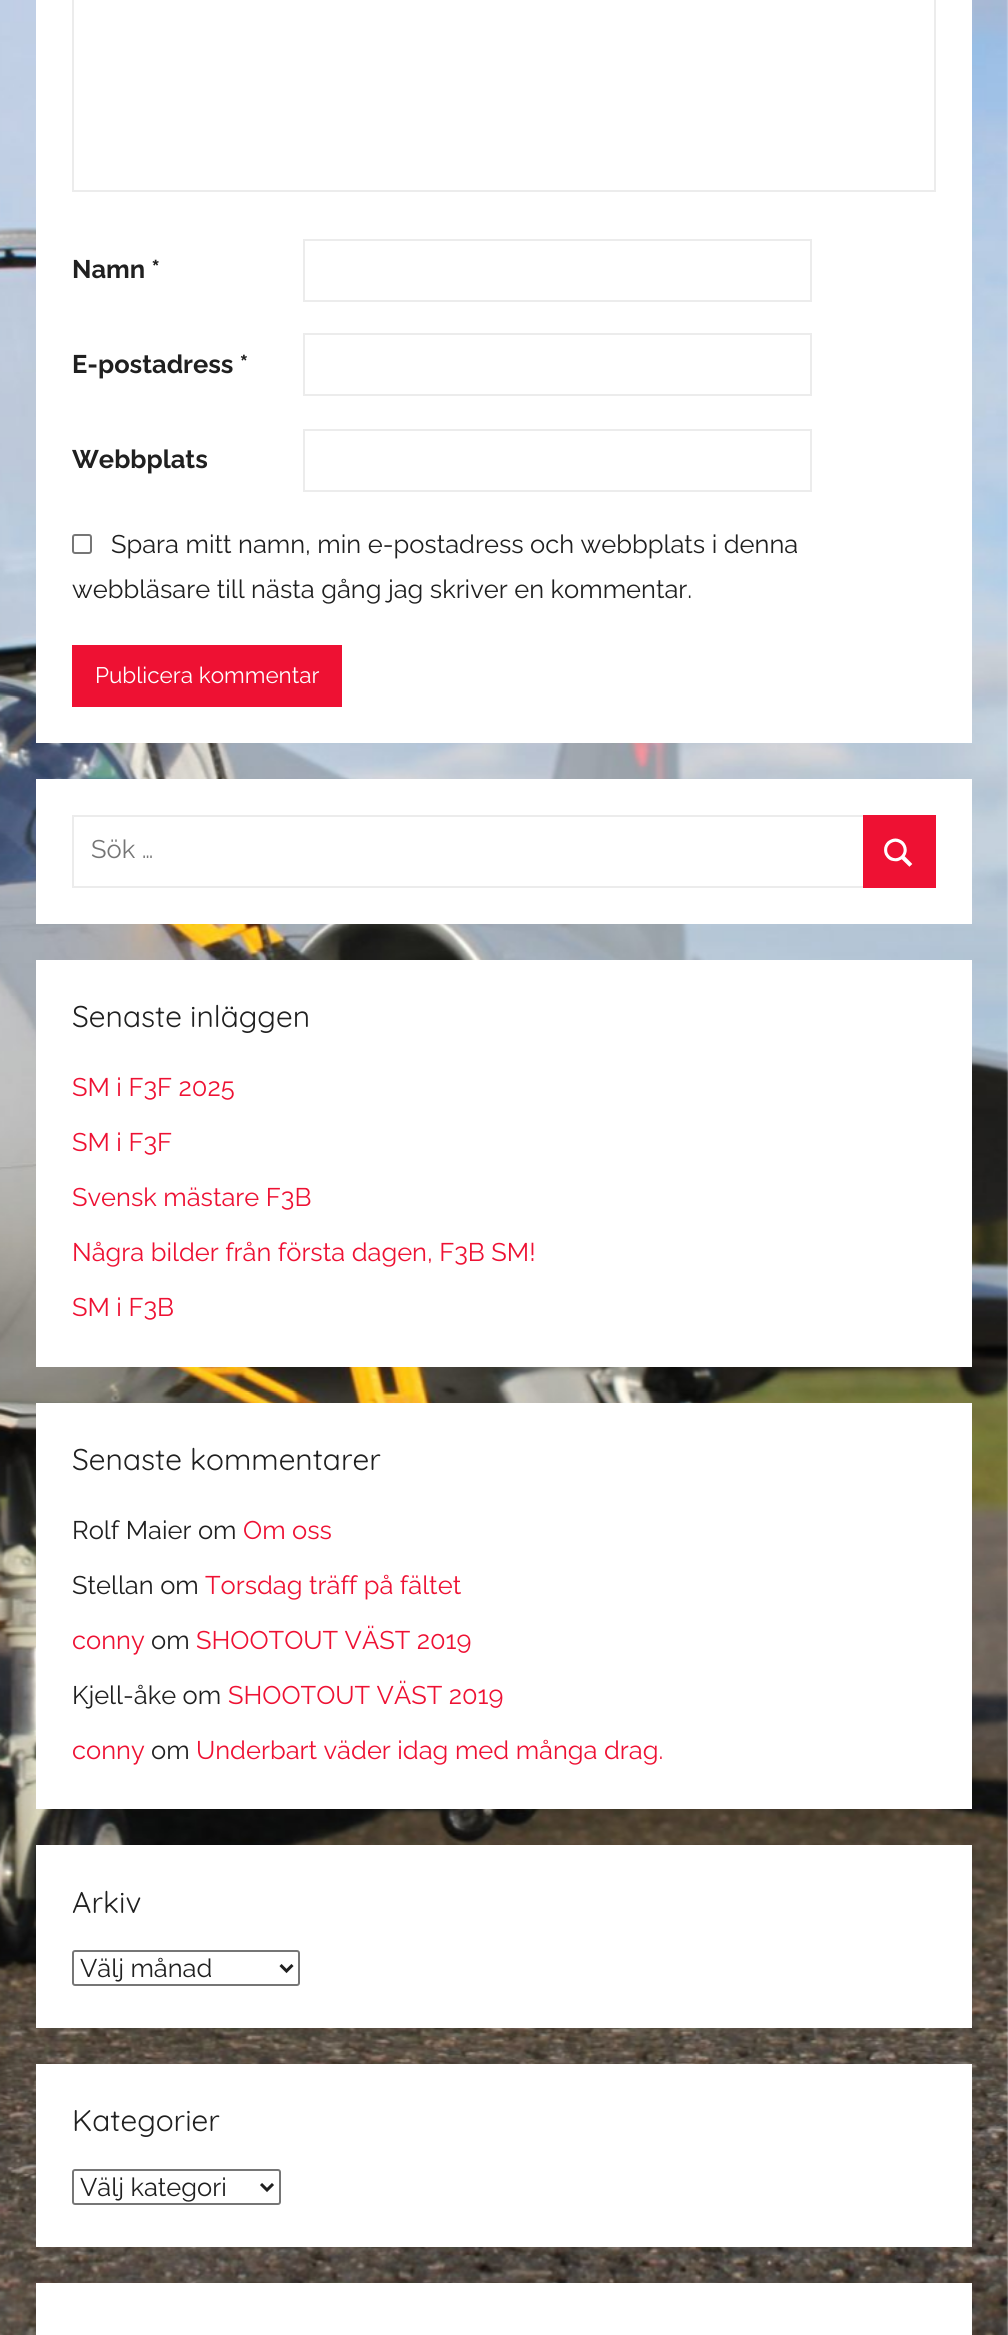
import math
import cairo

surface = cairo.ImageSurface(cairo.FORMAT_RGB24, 1008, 2335)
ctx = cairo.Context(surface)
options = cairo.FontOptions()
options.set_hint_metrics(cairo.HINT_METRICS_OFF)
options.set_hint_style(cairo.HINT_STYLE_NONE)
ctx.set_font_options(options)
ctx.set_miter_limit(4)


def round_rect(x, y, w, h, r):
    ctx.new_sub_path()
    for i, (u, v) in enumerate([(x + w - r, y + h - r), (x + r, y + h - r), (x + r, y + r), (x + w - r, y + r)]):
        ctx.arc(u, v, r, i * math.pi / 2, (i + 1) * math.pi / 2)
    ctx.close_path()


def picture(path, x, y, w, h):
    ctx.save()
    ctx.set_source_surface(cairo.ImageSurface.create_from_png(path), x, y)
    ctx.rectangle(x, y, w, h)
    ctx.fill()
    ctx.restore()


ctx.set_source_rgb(1, 1, 1)
ctx.paint()
picture("img1.png", 0, 0, 1008, 2335)
ctx.set_source_rgb(1, 1, 1)
ctx.rectangle(36, 0, 936, 743)
ctx.fill()
ctx.rectangle(73, -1, 862, 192)
ctx.set_source_rgb(0.925, 0.925, 0.925)
ctx.stroke()
ctx.select_font_face("Raleway Thin")
ctx.set_font_size(25.5)
ctx.set_source_rgb(0.125, 0.125, 0.125)
ctx.move_to(72, 278)
ctx.show_text("Namn *")
ctx.rectangle(304, 240, 507, 61)
ctx.set_source_rgb(0.925, 0.925, 0.925)
ctx.stroke()
ctx.set_source_rgb(0.125, 0.125, 0.125)
ctx.move_to(72, 373)
ctx.show_text("E-postadress *")
ctx.rectangle(304, 334, 507, 61)
ctx.set_source_rgb(0.925, 0.925, 0.925)
ctx.stroke()
ctx.set_source_rgb(0.125, 0.125, 0.125)
ctx.move_to(72, 468)
ctx.show_text("Webbplats")
ctx.rectangle(304, 430, 507, 61)
ctx.set_source_rgb(0.925, 0.925, 0.925)
ctx.stroke()
round_rect(73, 535, 18, 18, 2)
ctx.set_source_rgb(0.463, 0.463, 0.463)
ctx.stroke()
ctx.select_font_face("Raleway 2 Thin")
ctx.set_source_rgb(0.125, 0.125, 0.125)
ctx.move_to(111, 553)
ctx.show_text("Spara mitt namn, min e-postadress och webbplats i denna")
ctx.move_to(72, 598)
ctx.show_text("webbläsare till nästa gång jag skriver en kommentar.")
ctx.set_source_rgb(0.933, 0.067, 0.2)
ctx.rectangle(72, 645, 270, 62)
ctx.fill()
ctx.set_font_size(22.5)
ctx.set_source_rgb(1, 1, 1)
ctx.move_to(95, 683)
ctx.show_text("Publicera kommentar")
ctx.rectangle(36, 779, 936, 145)
ctx.fill()
ctx.rectangle(73, 816, 862, 71)
ctx.set_source_rgb(0.925, 0.925, 0.925)
ctx.stroke()
ctx.set_font_size(25.5)
ctx.set_source_rgb(0.459, 0.459, 0.459)
ctx.move_to(91, 858)
ctx.show_text("Sök …")
ctx.set_source_rgb(0.933, 0.067, 0.2)
ctx.rectangle(863, 815, 73, 73)
ctx.fill()
picture("img2.png", 884, 838, 29, 29)
ctx.set_source_rgb(1, 1, 1)
ctx.rectangle(36, 960, 936, 407)
ctx.fill()
ctx.select_font_face("Quicksand Light")
ctx.set_font_size(30)
ctx.set_source_rgb(0.125, 0.125, 0.125)
ctx.move_to(72, 1027)
ctx.show_text("Senaste inläggen")
ctx.select_font_face("Raleway 2 Thin")
ctx.set_font_size(25.5)
ctx.set_source_rgb(0.933, 0.067, 0.2)
ctx.move_to(72, 1096)
ctx.show_text("SM i F3F 2025")
ctx.move_to(72, 1151)
ctx.show_text("SM i F3F")
ctx.move_to(72, 1206)
ctx.show_text("Svensk mästare F3B")
ctx.move_to(72, 1261)
ctx.show_text("Några bilder från första dagen, F3B SM!")
ctx.move_to(72, 1316)
ctx.show_text("SM i F3B")
ctx.set_source_rgb(1, 1, 1)
ctx.rectangle(36, 1403, 936, 406)
ctx.fill()
ctx.select_font_face("Quicksand Light")
ctx.set_font_size(30)
ctx.set_source_rgb(0.125, 0.125, 0.125)
ctx.move_to(72, 1470)
ctx.show_text("Senaste kommentarer")
ctx.select_font_face("Raleway 2 Thin")
ctx.set_font_size(25.5)
ctx.move_to(72, 1539)
ctx.show_text("Rolf Maier om")
ctx.set_source_rgb(0.933, 0.067, 0.2)
ctx.move_to(243, 1539)
ctx.show_text("Om oss")
ctx.set_source_rgb(0.125, 0.125, 0.125)
ctx.move_to(72, 1594)
ctx.show_text("Stellan om")
ctx.set_source_rgb(0.933, 0.067, 0.2)
ctx.move_to(205, 1594)
ctx.show_text("Torsdag träff på fältet")
ctx.move_to(72, 1649)
ctx.show_text("conny")
ctx.set_source_rgb(0.125, 0.125, 0.125)
ctx.move_to(151, 1649)
ctx.show_text("om")
ctx.set_source_rgb(0.933, 0.067, 0.2)
ctx.move_to(196, 1649)
ctx.show_text("SHOOTOUT VÄST 2019")
ctx.set_source_rgb(0.125, 0.125, 0.125)
ctx.move_to(72, 1704)
ctx.show_text("Kjell-åke om")
ctx.set_source_rgb(0.933, 0.067, 0.2)
ctx.move_to(228, 1704)
ctx.show_text("SHOOTOUT VÄST 2019")
ctx.move_to(72, 1759)
ctx.show_text("conny")
ctx.set_source_rgb(0.125, 0.125, 0.125)
ctx.move_to(151, 1759)
ctx.show_text("om")
ctx.set_source_rgb(0.933, 0.067, 0.2)
ctx.move_to(196, 1759)
ctx.show_text("Underbart väder idag med många drag.")
ctx.set_source_rgb(1, 1, 1)
ctx.rectangle(36, 1845, 936, 183)
ctx.fill()
ctx.select_font_face("Quicksand Light")
ctx.set_font_size(30)
ctx.set_source_rgb(0.125, 0.125, 0.125)
ctx.move_to(72, 1913)
ctx.show_text("Arkiv")
round_rect(73, 1951, 226, 34, 2)
ctx.set_source_rgb(0.463, 0.463, 0.463)
ctx.stroke()
ctx.new_path()
ctx.move_to(280.5, 1965)
ctx.line_to(286.5, 1971)
ctx.line_to(292.5, 1965)
ctx.set_source_rgb(0.125, 0.125, 0.125)
ctx.set_line_width(3)
ctx.stroke()
ctx.select_font_face("Raleway 2 Thin")
ctx.set_font_size(25.5)
ctx.move_to(80, 1977)
ctx.show_text("Välj månad")
ctx.set_source_rgb(1, 1, 1)
ctx.rectangle(36, 2064, 936, 183)
ctx.fill()
ctx.select_font_face("Quicksand Light")
ctx.set_font_size(30)
ctx.set_source_rgb(0.125, 0.125, 0.125)
ctx.move_to(72, 2131)
ctx.show_text("Kategorier")
round_rect(73, 2170, 207, 34, 2)
ctx.set_source_rgb(0.463, 0.463, 0.463)
ctx.set_line_width(2)
ctx.stroke()
ctx.new_path()
ctx.move_to(261, 2184)
ctx.line_to(267, 2190)
ctx.line_to(273, 2184)
ctx.set_source_rgb(0.125, 0.125, 0.125)
ctx.set_line_width(3)
ctx.stroke()
ctx.select_font_face("Raleway 2 Thin")
ctx.set_font_size(25.5)
ctx.move_to(80, 2196)
ctx.show_text("Välj kategori")
ctx.set_source_rgb(1, 1, 1)
ctx.rectangle(36, 2283, 936, 52)
ctx.fill()
surface.write_to_png("page.png")
